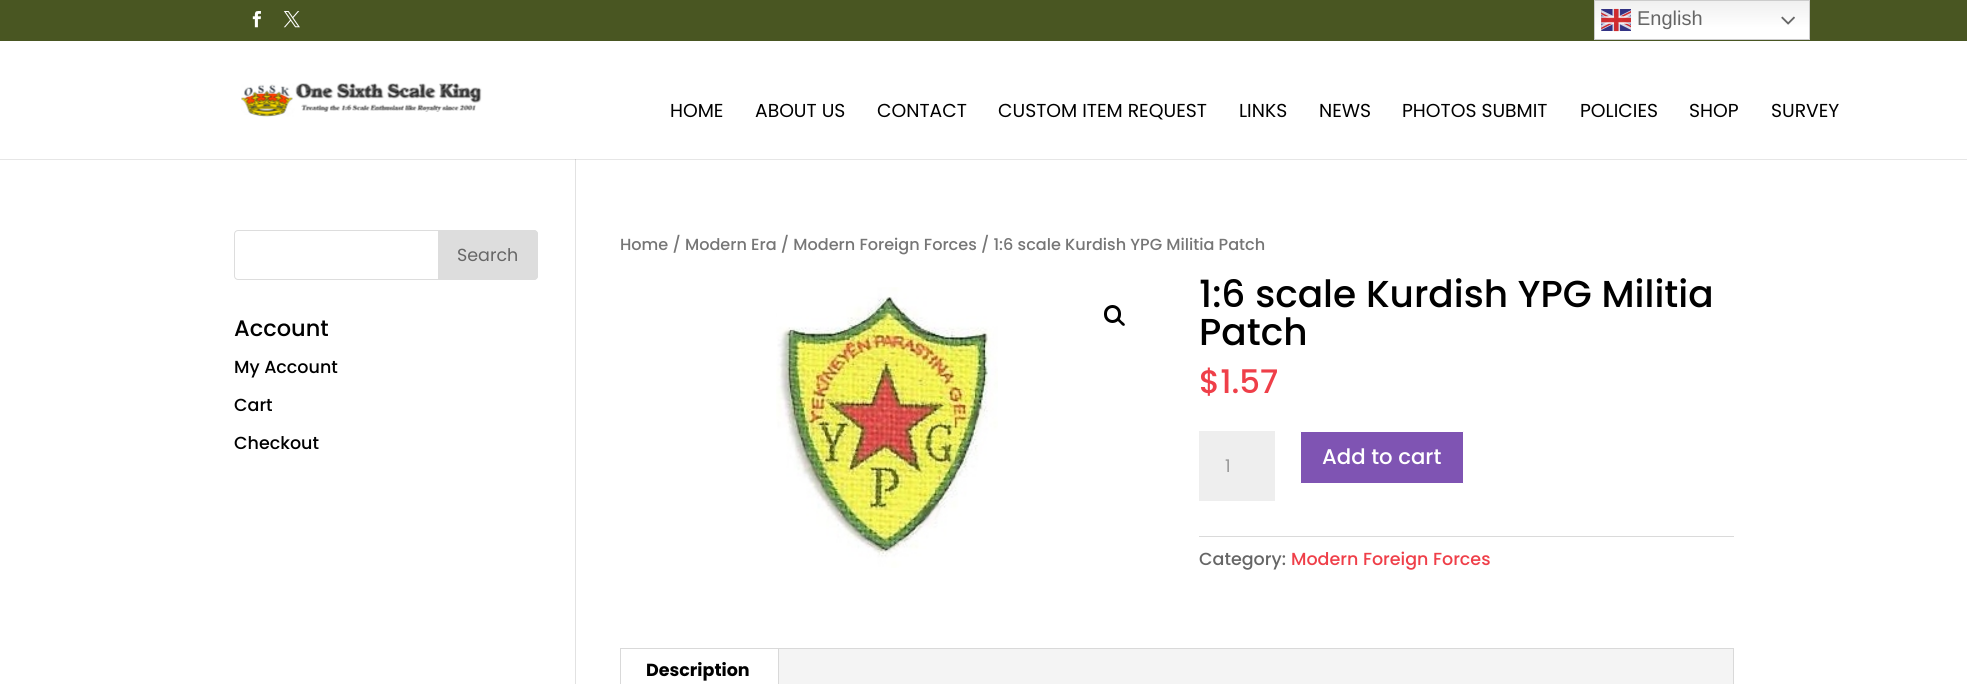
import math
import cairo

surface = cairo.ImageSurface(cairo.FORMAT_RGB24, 1967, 684)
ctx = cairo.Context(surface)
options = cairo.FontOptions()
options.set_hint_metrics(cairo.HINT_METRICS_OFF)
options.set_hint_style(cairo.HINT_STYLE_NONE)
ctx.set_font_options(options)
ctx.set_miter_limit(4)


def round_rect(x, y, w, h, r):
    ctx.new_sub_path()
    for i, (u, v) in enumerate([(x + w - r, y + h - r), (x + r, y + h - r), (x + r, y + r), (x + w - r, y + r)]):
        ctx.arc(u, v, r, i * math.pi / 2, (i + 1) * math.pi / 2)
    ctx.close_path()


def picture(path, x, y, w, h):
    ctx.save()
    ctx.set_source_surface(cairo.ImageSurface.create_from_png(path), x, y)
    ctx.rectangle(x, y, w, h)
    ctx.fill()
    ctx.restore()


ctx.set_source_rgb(1, 1, 1)
ctx.paint()
ctx.set_source_rgb(0.286, 0.337, 0.133)
ctx.rectangle(0, 0, 1967, 41)
ctx.fill()
gradient = cairo.LinearGradient(1702, 0, 1702, 40)
gradient.add_color_stop_rgba(0, 0.937, 0.937, 0.937, 1)
gradient.add_color_stop_rgba(0.7, 1, 1, 1, 1)
ctx.set_source(gradient)
ctx.rectangle(1595, 1, 214, 38)
ctx.fill()
ctx.rectangle(1594.5, 0.5, 215, 39)
ctx.set_source_rgb(0.8, 0.8, 0.8)
ctx.set_line_width(1)
ctx.stroke()
picture("img1.png", 1601, 8, 30, 24)
ctx.select_font_face("Liberation Sans")
ctx.set_font_size(20)
ctx.set_source_rgb(0.4, 0.4, 0.4)
ctx.move_to(1637, 25)
ctx.show_text("English")
picture("img2.png", 1781, 16, 14, 9)
picture("img3.png", 252, 11, 9, 17)
picture("img4.png", 283, 11, 17, 17)
ctx.set_source_rgb(0.886, 0.886, 0.886)
ctx.rectangle(575, 158, 1, 526)
ctx.fill()
ctx.set_source_rgba(0, 0, 0, 0.1)
ctx.new_path()
ctx.move_to(0, 159)
ctx.line_to(0, 160)
ctx.line_to(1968, 160)
ctx.line_to(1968, 43)
ctx.line_to(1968, 159)
ctx.close_path()
ctx.fill()
ctx.set_source_rgb(1, 1, 1)
ctx.rectangle(575, 158, 1, 1)
ctx.fill()
picture("img5.png", 241, 83, 241, 34)
ctx.select_font_face("Poppins")
ctx.set_font_size(18.75)
ctx.set_source_rgb(0, 0, 0)
ctx.move_to(670, 117)
ctx.show_text("HOME")
ctx.move_to(755, 117)
ctx.show_text("ABOUT US")
ctx.move_to(877, 117)
ctx.show_text("CONTACT")
ctx.move_to(998, 117)
ctx.show_text("CUSTOM ITEM REQUEST")
ctx.move_to(1239, 117)
ctx.show_text("LINKS")
ctx.move_to(1319, 117)
ctx.show_text("NEWS")
ctx.move_to(1402, 117)
ctx.show_text("PHOTOS SUBMIT")
ctx.move_to(1580, 117)
ctx.show_text("POLICIES")
ctx.move_to(1689, 117)
ctx.show_text("SHOP")
ctx.move_to(1771, 117)
ctx.show_text("SURVEY")
round_rect(234.5, 230.5, 303, 49, 3.5)
ctx.set_source_rgb(0.867, 0.867, 0.867)
ctx.stroke()
ctx.new_path()
ctx.move_to(438, 230)
ctx.line_to(534, 230)
ctx.curve_to(536, 230, 538, 232, 538, 234)
ctx.line_to(538, 276)
ctx.curve_to(538, 278, 536, 280, 534, 280)
ctx.line_to(438, 280)
ctx.close_path()
ctx.fill()
ctx.set_font_size(17.5)
ctx.set_source_rgb(0.4, 0.4, 0.4)
ctx.move_to(457, 261)
ctx.show_text("Search")
ctx.select_font_face("Poppins Medium")
ctx.set_font_size(22.5)
ctx.set_source_rgb(0, 0, 0)
ctx.move_to(234, 336)
ctx.show_text("Account")
ctx.set_font_size(17.5)
ctx.move_to(234, 373)
ctx.show_text("My Account")
ctx.move_to(234, 411)
ctx.show_text("Cart")
ctx.move_to(234, 449)
ctx.show_text("Checkout")
ctx.set_font_size(16.1)
ctx.set_source_rgb(0.463, 0.463, 0.463)
ctx.move_to(620, 250)
ctx.show_text("Home / Modern Era / Modern Foreign Forces / 1:6 scale Kurdish YPG Militia Patch")
picture("img6.png", 776, 287, 222, 281)
round_rect(1105.5, 306.5, 14, 15, 7)
ctx.set_source_rgb(0, 0, 0)
ctx.set_line_width(3)
ctx.stroke()
ctx.new_path()
ctx.move_to(1117.5, 318.5)
ctx.curve_to(1118.5, 317, 1121, 320.5, 1121.5, 321)
ctx.curve_to(1122.5, 322, 1126, 324, 1124.5, 325.5)
ctx.curve_to(1123, 327, 1120.5, 323.5, 1120, 323)
ctx.curve_to(1119, 322, 1116, 320, 1117.5, 318.5)
ctx.close_path()
ctx.fill()
ctx.set_font_size(37.5)
ctx.move_to(1199, 307)
ctx.show_text("1:6 scale Kurdish YPG Militia")
ctx.move_to(1199, 345)
ctx.show_text("Patch")
ctx.set_font_size(32.5)
ctx.set_source_rgb(0.937, 0.247, 0.286)
ctx.move_to(1199, 393)
ctx.show_text("$1.57")
ctx.set_source_rgb(0.933, 0.933, 0.933)
ctx.rectangle(1199, 431, 76, 70)
ctx.fill()
ctx.select_font_face("Poppins")
ctx.set_font_size(17.5)
ctx.set_source_rgb(0.6, 0.6, 0.6)
ctx.move_to(1225, 472)
ctx.show_text("1")
ctx.set_source_rgb(0.498, 0.329, 0.702)
round_rect(1300.5, 431.5, 163, 52, 0.5)
ctx.fill_preserve()
ctx.set_source_rgb(1, 1, 1)
ctx.set_line_width(1)
ctx.stroke()
ctx.select_font_face("Poppins Medium")
ctx.set_font_size(21.25)
ctx.move_to(1322, 464)
ctx.show_text("Add to cart")
ctx.set_source_rgb(0.855, 0.855, 0.855)
ctx.rectangle(1199, 536, 535, 1)
ctx.fill()
ctx.set_font_size(17.5)
ctx.set_source_rgb(0.4, 0.4, 0.4)
ctx.move_to(1199, 565)
ctx.show_text("Category:")
ctx.set_source_rgb(0.937, 0.247, 0.286)
ctx.move_to(1291, 565)
ctx.show_text("Modern Foreign Forces")
ctx.rectangle(620.5, 648.5, 1113, 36)
ctx.set_source_rgb(0.851, 0.851, 0.851)
ctx.stroke()
ctx.set_source_rgb(0.957, 0.957, 0.957)
ctx.rectangle(779, 649, 954, 35)
ctx.fill()
ctx.set_source_rgb(0.851, 0.851, 0.851)
ctx.rectangle(778, 649, 1, 35)
ctx.fill()
ctx.select_font_face("Poppins", cairo.FONT_SLANT_NORMAL, cairo.FONT_WEIGHT_BOLD)
ctx.set_source_rgb(0, 0, 0)
ctx.move_to(646, 676)
ctx.show_text("Description")
surface.write_to_png("page.png")
